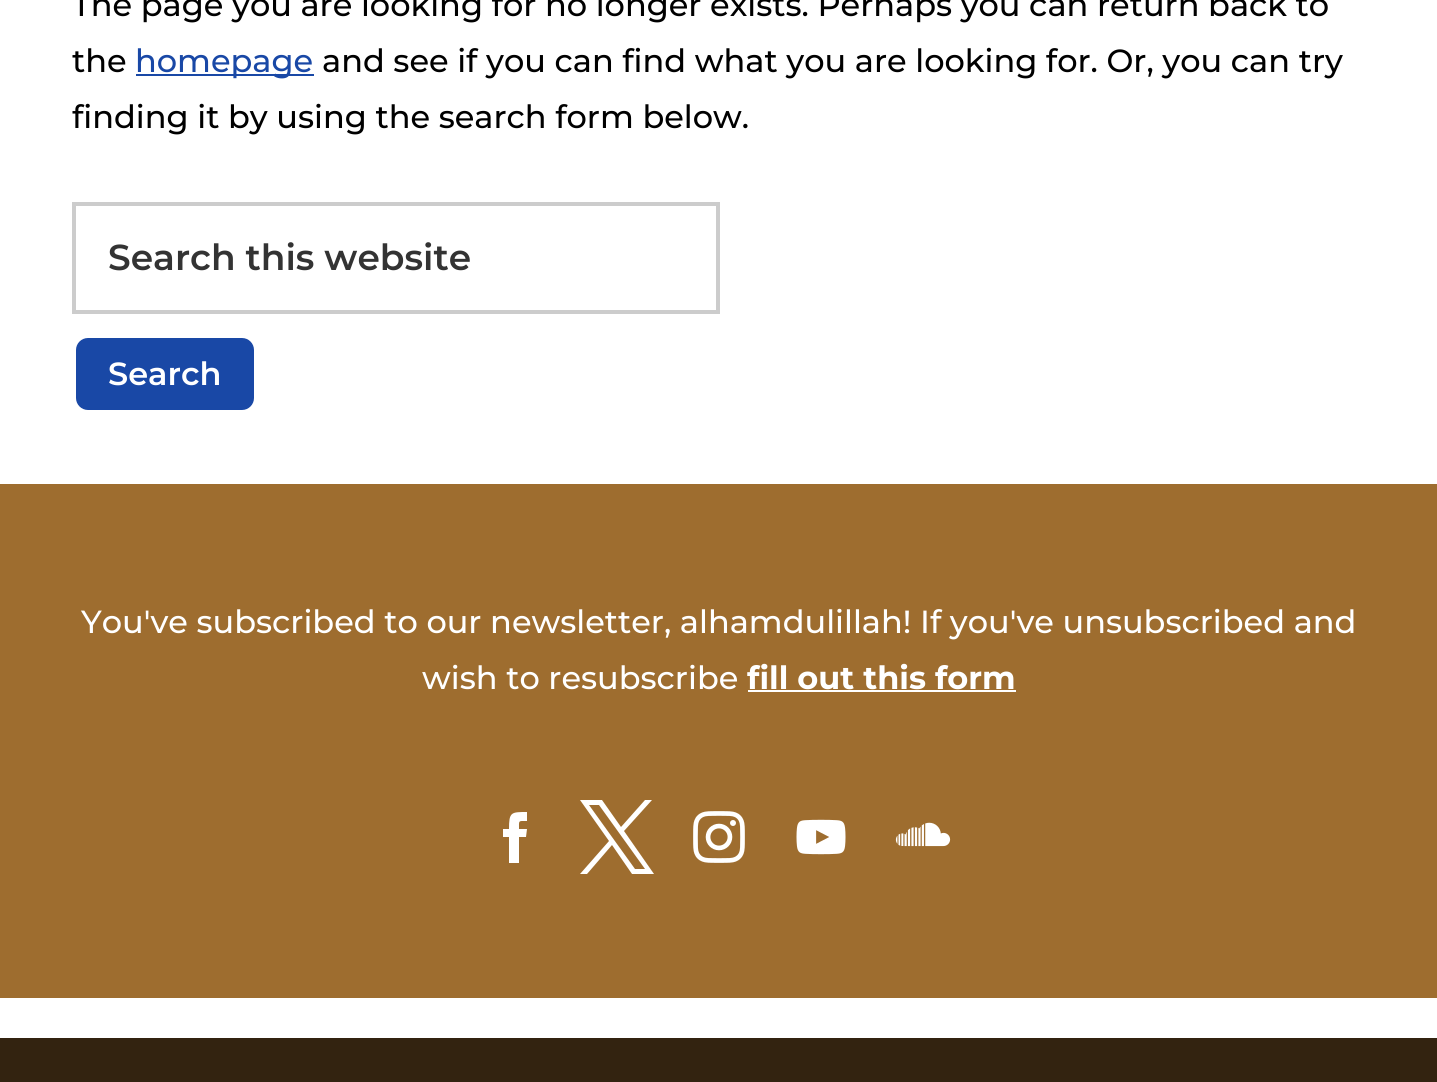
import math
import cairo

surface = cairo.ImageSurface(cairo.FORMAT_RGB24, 1437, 1082)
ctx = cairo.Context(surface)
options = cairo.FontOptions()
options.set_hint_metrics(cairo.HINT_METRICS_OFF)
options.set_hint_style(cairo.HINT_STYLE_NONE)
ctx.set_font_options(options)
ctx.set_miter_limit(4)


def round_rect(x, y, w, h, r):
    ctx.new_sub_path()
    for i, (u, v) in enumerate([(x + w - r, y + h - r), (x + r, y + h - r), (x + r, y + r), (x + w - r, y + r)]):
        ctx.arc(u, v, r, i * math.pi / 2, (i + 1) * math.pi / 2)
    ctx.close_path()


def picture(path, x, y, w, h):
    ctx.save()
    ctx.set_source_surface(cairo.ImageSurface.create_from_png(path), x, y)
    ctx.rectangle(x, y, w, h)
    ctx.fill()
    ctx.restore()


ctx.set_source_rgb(1, 1, 1)
ctx.paint()
ctx.select_font_face("Montserrat Medium")
ctx.set_font_size(32)
ctx.set_source_rgb(0, 0, 0)
ctx.move_to(72, 16)
ctx.show_text("The page you are looking for no longer exists. Perhaps you can return back to")
ctx.move_to(72, 72)
ctx.show_text("the")
ctx.set_source_rgb(0.098, 0.282, 0.651)
ctx.rectangle(136, 74, 178, 2)
ctx.fill()
ctx.move_to(135, 72)
ctx.show_text("homepage")
ctx.set_source_rgb(0, 0, 0)
ctx.move_to(322, 72)
ctx.show_text("and see if you can find what you are looking for. Or, you can try")
ctx.move_to(72, 128)
ctx.show_text("finding it by using the search form below.")
ctx.rectangle(74, 204, 644, 108)
ctx.set_source_rgb(0.8, 0.8, 0.8)
ctx.set_line_width(4)
ctx.stroke()
ctx.select_font_face("Montserrat SemiBold")
ctx.set_font_size(36)
ctx.set_source_rgb(0.2, 0.2, 0.2)
ctx.move_to(108, 270)
ctx.show_text("Search this website")
ctx.set_source_rgb(0.098, 0.282, 0.651)
round_rect(74, 336, 182, 76, 14)
ctx.fill_preserve()
ctx.set_source_rgb(1, 1, 1)
ctx.stroke()
ctx.set_font_size(32)
ctx.move_to(108, 385)
ctx.show_text("Search")
ctx.set_source_rgb(0.62, 0.427, 0.184)
ctx.rectangle(0, 484, 1437, 514)
ctx.fill()
ctx.select_font_face("Montserrat Medium")
ctx.set_source_rgb(1, 1, 1)
ctx.move_to(81, 633)
ctx.show_text("You've subscribed to our newsletter, alhamdulillah! If you've unsubscribed and")
ctx.move_to(422, 689)
ctx.show_text("wish to resubscribe")
ctx.select_font_face("Montserrat", cairo.FONT_SLANT_NORMAL, cairo.FONT_WEIGHT_BOLD)
ctx.move_to(747, 689)
ctx.show_text("fill out this form")
ctx.rectangle(748, 690, 268, 2)
ctx.fill()
ctx.new_path()
ctx.move_to(509, 829)
ctx.line_to(503, 829)
ctx.line_to(503, 837)
ctx.line_to(509, 837)
ctx.line_to(509, 863)
ctx.line_to(519, 863)
ctx.line_to(519, 837)
ctx.line_to(526, 837)
ctx.line_to(527, 829)
ctx.line_to(519, 829)
ctx.curve_to(519, 820, 518, 821, 527, 821)
ctx.line_to(527, 812)
ctx.curve_to(511, 812, 509, 812, 509, 829)
ctx.close_path()
ctx.fill()
ctx.new_path()
ctx.move_to(624, 831)
ctx.line_to(652, 800)
ctx.line_to(645, 800)
ctx.line_to(621, 827)
ctx.line_to(602, 800)
ctx.line_to(580, 800)
ctx.line_to(609, 841)
ctx.line_to(580, 874)
ctx.line_to(587, 874)
ctx.line_to(612, 845)
ctx.line_to(632, 874)
ctx.line_to(654, 874)
ctx.move_to(589, 805)
ctx.line_to(599, 805)
ctx.line_to(645, 869)
ctx.line_to(635, 869)
ctx.fill()
picture("img1.png", 693, 811, 52, 52)
picture("img2.png", 796, 819, 50, 36)
picture("img3.png", 895, 822, 56, 25)
ctx.set_source_rgb(0.2, 0.137, 0.063)
ctx.rectangle(0, 1038, 1437, 44)
ctx.fill()
surface.write_to_png("page.png")
